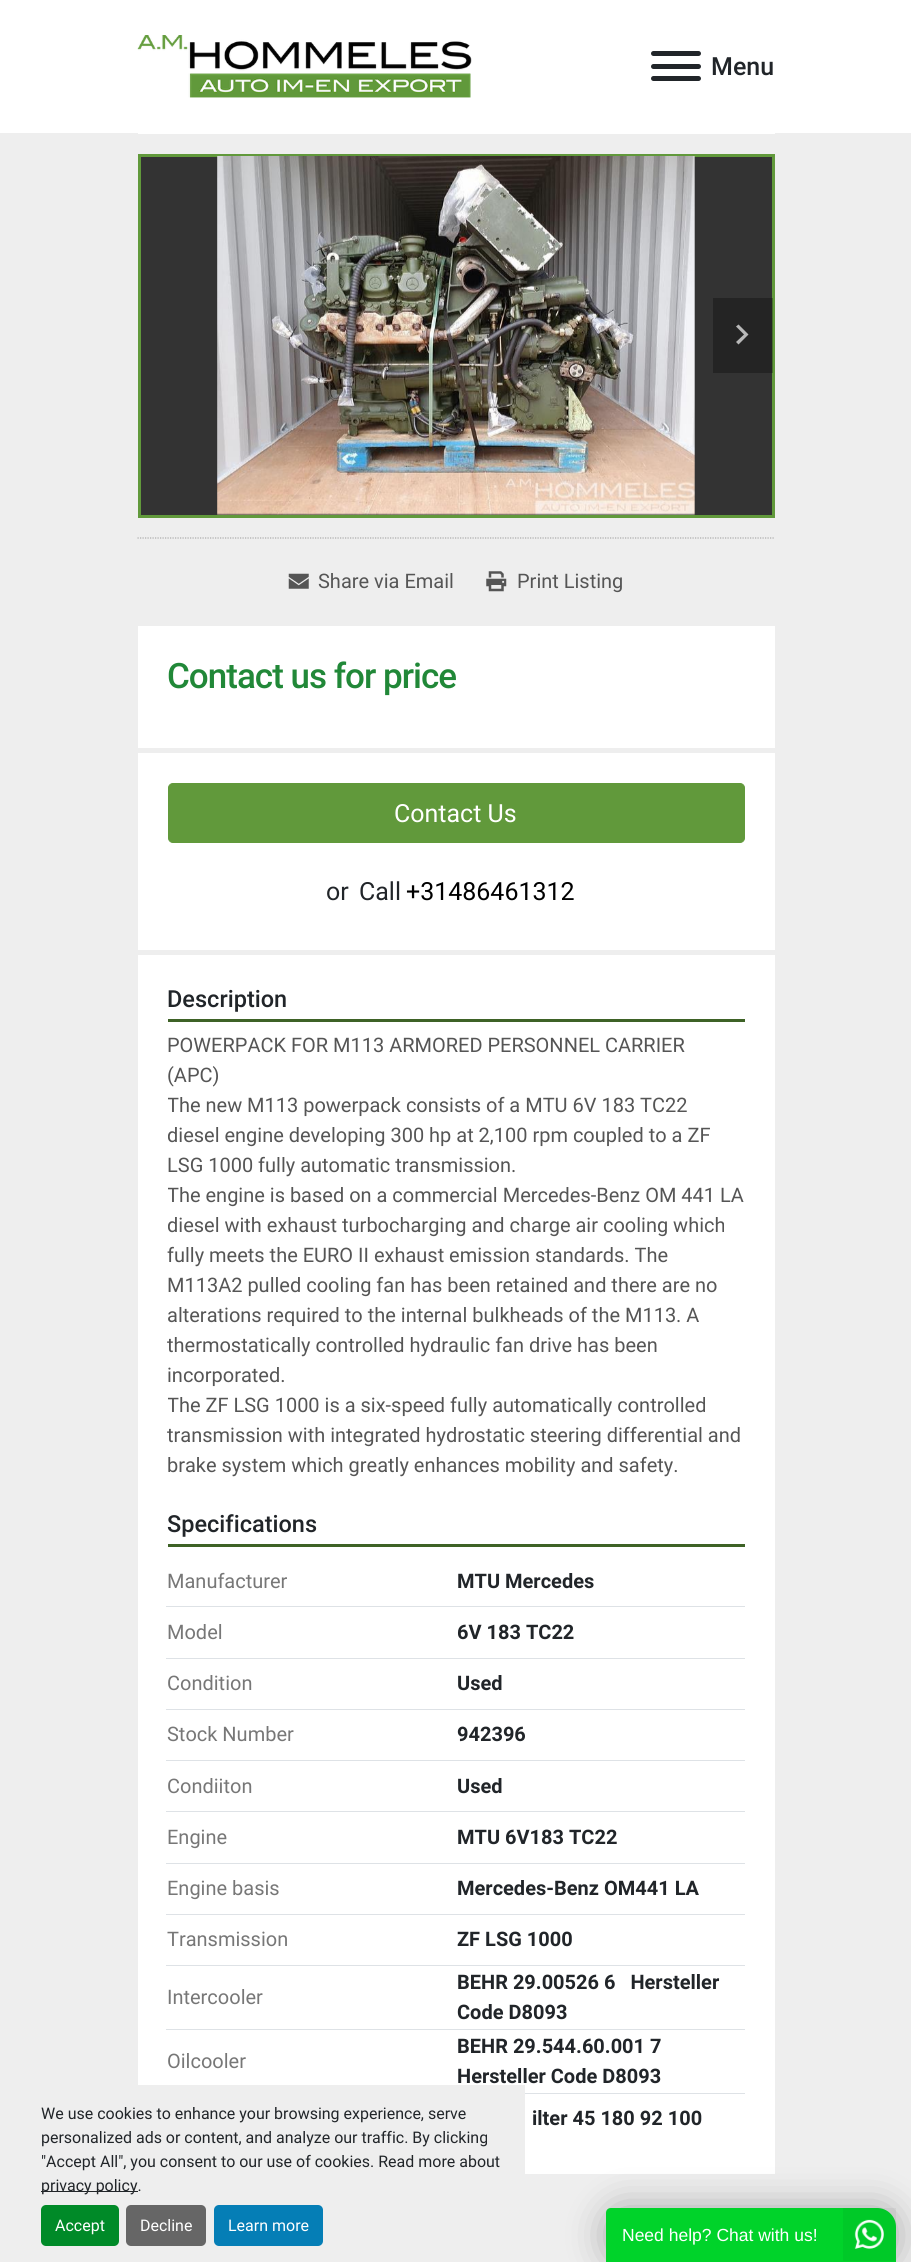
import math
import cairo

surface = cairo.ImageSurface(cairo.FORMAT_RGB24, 911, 2262)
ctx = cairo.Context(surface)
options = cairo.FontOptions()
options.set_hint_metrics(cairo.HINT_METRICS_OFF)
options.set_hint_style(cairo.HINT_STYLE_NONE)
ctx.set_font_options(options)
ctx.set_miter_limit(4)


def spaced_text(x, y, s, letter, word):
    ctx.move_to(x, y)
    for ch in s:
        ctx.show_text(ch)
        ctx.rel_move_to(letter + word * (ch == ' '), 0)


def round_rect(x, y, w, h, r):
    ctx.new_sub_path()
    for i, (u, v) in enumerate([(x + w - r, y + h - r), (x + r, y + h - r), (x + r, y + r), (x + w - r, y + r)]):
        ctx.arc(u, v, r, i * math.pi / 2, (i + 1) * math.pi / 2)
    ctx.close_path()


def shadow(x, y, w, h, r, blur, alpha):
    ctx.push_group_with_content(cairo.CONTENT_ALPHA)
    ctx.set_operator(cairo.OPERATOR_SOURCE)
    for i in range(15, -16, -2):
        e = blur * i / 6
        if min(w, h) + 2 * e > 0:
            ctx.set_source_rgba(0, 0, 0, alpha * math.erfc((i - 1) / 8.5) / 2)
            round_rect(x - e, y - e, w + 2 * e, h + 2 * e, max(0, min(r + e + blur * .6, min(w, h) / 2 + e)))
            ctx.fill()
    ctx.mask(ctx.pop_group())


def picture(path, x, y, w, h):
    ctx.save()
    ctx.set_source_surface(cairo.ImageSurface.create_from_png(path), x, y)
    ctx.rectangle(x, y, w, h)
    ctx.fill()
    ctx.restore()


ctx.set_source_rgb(0.933, 0.933, 0.933)
ctx.paint()
ctx.set_source_rgb(1, 1, 1)
ctx.rectangle(0, 0, 911, 133)
ctx.fill()
picture("img1.png", 137, 35, 335, 63)
ctx.set_source_rgb(0.129, 0.145, 0.161)
round_rect(651, 64, 50, 5, 2.5)
ctx.fill()
round_rect(651, 51, 50, 5, 2.5)
ctx.fill()
round_rect(651, 76, 50, 5, 2.5)
ctx.fill()
ctx.select_font_face("Roboto Medium")
ctx.set_font_size(25)
ctx.move_to(711, 75)
ctx.show_text("Menu")
ctx.set_source_rgb(1, 1, 1)
ctx.rectangle(138, 133, 637, 1)
ctx.fill()
ctx.set_source_rgb(0.2, 0.2, 0.2)
ctx.rectangle(139.5, 155.5, 634, 361)
ctx.fill_preserve()
ctx.set_source_rgb(0.38, 0.6, 0.231)
ctx.set_line_width(3)
ctx.stroke()
picture("img2.png", 217, 156, 478, 359)
ctx.set_source_rgba(0, 0, 0, 0.29)
ctx.rectangle(713, 298, 60, 75)
ctx.fill()
ctx.set_source_rgb(0.722, 0.722, 0.722)
ctx.new_path()
ctx.move_to(748.5, 334.5)
ctx.line_to(738.5, 344.5)
ctx.line_to(736, 342)
ctx.line_to(744, 334.5)
ctx.line_to(736, 326.5)
ctx.line_to(738.5, 324.5)
ctx.close_path()
ctx.fill()
ctx.new_path()
ctx.move_to(137.5, 538)
ctx.line_to(775, 538)
ctx.set_source_rgb(0.667, 0.667, 0.667)
ctx.set_line_width(1.2)
ctx.set_dash([1.25, 1.25])
ctx.stroke()
picture("img3.png", 288, 573, 21, 16)
ctx.select_font_face("Roboto")
ctx.set_font_size(20)
ctx.set_source_rgb(0.333, 0.333, 0.333)
ctx.move_to(318, 588)
ctx.show_text("Share via Email")
picture("img4.png", 486, 571, 21, 21)
ctx.move_to(517, 588)
ctx.show_text("Print Listing")
ctx.set_source_rgb(1, 1, 1)
ctx.rectangle(138, 626, 637, 1548)
ctx.fill()
ctx.select_font_face("Roboto Medium")
ctx.set_font_size(35)
ctx.set_source_rgb(0.129, 0.533, 0.22)
spaced_text(167, 688, "Contact us for price", -1, 0)
ctx.set_source_rgb(0.933, 0.933, 0.933)
ctx.rectangle(138, 748, 637, 5)
ctx.fill()
ctx.rectangle(138, 950, 637, 5)
ctx.fill()
ctx.set_source_rgb(0.38, 0.6, 0.231)
round_rect(168.5, 783.5, 576, 59, 4.5)
ctx.fill_preserve()
ctx.set_line_width(1)
ctx.set_dash([])
ctx.stroke()
ctx.select_font_face("Roboto")
ctx.set_font_size(25)
ctx.set_source_rgb(1, 1, 1)
ctx.move_to(394, 822)
ctx.show_text("Contact Us")
ctx.set_source_rgb(0.129, 0.145, 0.161)
ctx.move_to(326, 900)
ctx.show_text("or")
ctx.move_to(359, 900)
ctx.show_text("Call")
ctx.set_source_rgb(0, 0, 0)
ctx.move_to(406, 900)
ctx.show_text("+31486461312")
ctx.set_source_rgb(0.243, 0.384, 0.149)
ctx.rectangle(168, 1019, 577, 3)
ctx.fill()
ctx.select_font_face("Roboto Medium")
ctx.set_font_size(23.5)
ctx.set_source_rgb(0.129, 0.145, 0.161)
ctx.move_to(167, 1007)
ctx.show_text("Description")
ctx.select_font_face("Roboto")
ctx.set_font_size(20)
ctx.set_source_rgb(0.333, 0.333, 0.333)
ctx.move_to(167, 1052)
ctx.show_text("POWERPACK FOR M113 ARMORED PERSONNEL CARRIER")
ctx.move_to(167, 1082)
ctx.show_text("(APC)")
ctx.save()
ctx.rectangle(168, 1031, 577, 450)
ctx.clip()
ctx.move_to(167, 1112)
ctx.show_text("The new M113 powerpack consists of a MTU 6V 183 TC22")
ctx.move_to(167, 1142)
ctx.show_text("diesel engine developing 300 hp at 2,100 rpm coupled to a ZF")
ctx.restore()
ctx.move_to(167, 1172)
ctx.show_text("LSG 1000 fully automatic transmission.")
ctx.save()
ctx.rectangle(168, 1031, 577, 450)
ctx.clip()
ctx.move_to(167, 1202)
ctx.show_text("The engine is based on a commercial Mercedes-Benz OM 441 LA")
ctx.move_to(167, 1232)
ctx.show_text("diesel with exhaust turbocharging and charge air cooling which")
ctx.restore()
ctx.move_to(167, 1262)
ctx.show_text("fully meets the EURO II exhaust emission standards. The")
ctx.move_to(167, 1292)
ctx.show_text("M113A2 pulled cooling fan has been retained and there are no")
ctx.move_to(167, 1322)
ctx.show_text("alterations required to the internal bulkheads of the M113. A")
ctx.move_to(167, 1352)
ctx.show_text("thermostatically controlled hydraulic fan drive has been")
ctx.move_to(167, 1382)
ctx.show_text("incorporated.")
ctx.save()
ctx.rectangle(168, 1031, 577, 450)
ctx.clip()
ctx.move_to(167, 1412)
ctx.show_text("The ZF LSG 1000 is a six-speed fully automatically controlled")
ctx.restore()
ctx.move_to(167, 1442)
ctx.show_text("transmission with integrated hydrostatic steering differential and")
ctx.move_to(167, 1472)
ctx.show_text("brake system which greatly enhances mobility and safety.")
ctx.set_source_rgb(0.243, 0.384, 0.149)
ctx.rectangle(168, 1544, 577, 3)
ctx.fill()
ctx.select_font_face("Roboto Medium")
ctx.set_font_size(23.5)
ctx.set_source_rgb(0.129, 0.145, 0.161)
ctx.move_to(167, 1532)
ctx.show_text("Specifications")
ctx.set_source_rgb(0.871, 0.886, 0.902)
ctx.rectangle(166, 1606, 579, 1)
ctx.fill()
ctx.select_font_face("Roboto")
ctx.set_font_size(20)
ctx.set_source_rgb(0.467, 0.467, 0.467)
ctx.move_to(167, 1588)
ctx.show_text("Manufacturer")
ctx.select_font_face("Roboto", cairo.FONT_SLANT_NORMAL, cairo.FONT_WEIGHT_BOLD)
ctx.set_source_rgb(0.129, 0.145, 0.161)
ctx.move_to(457, 1588)
ctx.show_text("MTU Mercedes")
ctx.set_source_rgb(0.871, 0.886, 0.902)
ctx.rectangle(166, 1658, 579, 1)
ctx.fill()
ctx.select_font_face("Roboto")
ctx.set_source_rgb(0.467, 0.467, 0.467)
ctx.move_to(167, 1639)
ctx.show_text("Model")
ctx.select_font_face("Roboto", cairo.FONT_SLANT_NORMAL, cairo.FONT_WEIGHT_BOLD)
ctx.set_source_rgb(0.129, 0.145, 0.161)
ctx.move_to(457, 1639)
ctx.show_text("6V 183 TC22")
ctx.set_source_rgb(0.871, 0.886, 0.902)
ctx.rectangle(166, 1709, 579, 1)
ctx.fill()
ctx.select_font_face("Roboto")
ctx.set_source_rgb(0.467, 0.467, 0.467)
ctx.move_to(167, 1690)
ctx.show_text("Condition")
ctx.select_font_face("Roboto", cairo.FONT_SLANT_NORMAL, cairo.FONT_WEIGHT_BOLD)
ctx.set_source_rgb(0.129, 0.145, 0.161)
ctx.move_to(457, 1690)
ctx.show_text("Used")
ctx.set_source_rgb(0.871, 0.886, 0.902)
ctx.rectangle(166, 1760, 579, 1)
ctx.fill()
ctx.select_font_face("Roboto")
ctx.set_source_rgb(0.467, 0.467, 0.467)
ctx.move_to(167, 1741)
ctx.show_text("Stock Number")
ctx.select_font_face("Roboto", cairo.FONT_SLANT_NORMAL, cairo.FONT_WEIGHT_BOLD)
ctx.set_source_rgb(0.129, 0.145, 0.161)
ctx.move_to(457, 1741)
ctx.show_text("942396")
ctx.set_source_rgb(0.871, 0.886, 0.902)
ctx.rectangle(166, 1811, 579, 1)
ctx.fill()
ctx.select_font_face("Roboto")
ctx.set_source_rgb(0.467, 0.467, 0.467)
ctx.move_to(167, 1793)
ctx.show_text("Condiiton")
ctx.select_font_face("Roboto", cairo.FONT_SLANT_NORMAL, cairo.FONT_WEIGHT_BOLD)
ctx.set_source_rgb(0.129, 0.145, 0.161)
ctx.move_to(457, 1793)
ctx.show_text("Used")
ctx.set_source_rgb(0.871, 0.886, 0.902)
ctx.rectangle(166, 1863, 579, 1)
ctx.fill()
ctx.select_font_face("Roboto")
ctx.set_source_rgb(0.467, 0.467, 0.467)
ctx.move_to(167, 1844)
ctx.show_text("Engine")
ctx.select_font_face("Roboto", cairo.FONT_SLANT_NORMAL, cairo.FONT_WEIGHT_BOLD)
ctx.set_source_rgb(0.129, 0.145, 0.161)
ctx.move_to(457, 1844)
ctx.show_text("MTU 6V183 TC22")
ctx.set_source_rgb(0.871, 0.886, 0.902)
ctx.rectangle(166, 1914, 579, 1)
ctx.fill()
ctx.select_font_face("Roboto")
ctx.set_source_rgb(0.467, 0.467, 0.467)
ctx.move_to(167, 1895)
ctx.show_text("Engine basis")
ctx.select_font_face("Roboto", cairo.FONT_SLANT_NORMAL, cairo.FONT_WEIGHT_BOLD)
ctx.set_source_rgb(0.129, 0.145, 0.161)
ctx.move_to(457, 1895)
ctx.show_text("Mercedes-Benz OM441 LA")
ctx.set_source_rgb(0.871, 0.886, 0.902)
ctx.rectangle(166, 1965, 579, 1)
ctx.fill()
ctx.select_font_face("Roboto")
ctx.set_source_rgb(0.467, 0.467, 0.467)
ctx.move_to(167, 1946)
ctx.show_text("Transmission")
ctx.select_font_face("Roboto", cairo.FONT_SLANT_NORMAL, cairo.FONT_WEIGHT_BOLD)
ctx.set_source_rgb(0.129, 0.145, 0.161)
ctx.move_to(457, 1946)
ctx.show_text("ZF LSG 1000")
ctx.set_source_rgb(0.871, 0.886, 0.902)
ctx.rectangle(166, 2029, 579, 1)
ctx.fill()
ctx.select_font_face("Roboto")
ctx.set_source_rgb(0.467, 0.467, 0.467)
ctx.move_to(167, 2004)
ctx.show_text("Intercooler")
ctx.select_font_face("Roboto", cairo.FONT_SLANT_NORMAL, cairo.FONT_WEIGHT_BOLD)
ctx.set_source_rgb(0.129, 0.145, 0.161)
ctx.move_to(457, 1989)
ctx.show_text("BEHR 29.00526 6   Hersteller")
ctx.move_to(457, 2019)
ctx.show_text("Code D8093")
ctx.set_source_rgb(0.871, 0.886, 0.902)
ctx.rectangle(525, 2093, 220, 1)
ctx.fill()
ctx.select_font_face("Roboto")
ctx.set_source_rgb(0.467, 0.467, 0.467)
ctx.move_to(167, 2068)
ctx.show_text("Oilcooler")
ctx.select_font_face("Roboto", cairo.FONT_SLANT_NORMAL, cairo.FONT_WEIGHT_BOLD)
ctx.set_source_rgb(0.129, 0.145, 0.161)
ctx.move_to(457, 2053)
ctx.show_text("BEHR 29.544.60.001 7")
ctx.move_to(457, 2083)
ctx.show_text("Hersteller Code D8093")
ctx.move_to(532, 2125)
ctx.show_text("ilter 45 180 92 100")
ctx.set_source_rgb(0.933, 0.933, 0.933)
ctx.rectangle(138, 2085, 387, 89)
ctx.fill()
ctx.select_font_face("Roboto")
ctx.set_font_size(16)
ctx.set_source_rgb(0.129, 0.145, 0.161)
ctx.move_to(41, 2119)
ctx.show_text("We use cookies to enhance your browsing experience, serve")
ctx.move_to(41, 2143)
ctx.show_text("personalized ads or content, and analyze our traffic. By clicking")
ctx.move_to(41, 2167)
ctx.show_text("\"Accept All\", you consent to our use of cookies. Read more about")
ctx.rectangle(41, 2191, 97, 1)
ctx.fill()
ctx.move_to(41, 2191)
ctx.show_text("privacy policy.")
ctx.set_source_rgb(0, 0.541, 0.157)
round_rect(41, 2205, 78, 41, 5)
ctx.fill()
ctx.set_source_rgb(1, 1, 1)
ctx.move_to(55, 2231)
ctx.show_text("Accept")
ctx.set_source_rgb(0.4, 0.4, 0.4)
round_rect(126, 2205, 80, 41, 5)
ctx.fill()
ctx.set_source_rgb(1, 1, 1)
ctx.move_to(140, 2231)
ctx.show_text("Decline")
ctx.set_source_rgb(0.02, 0.494, 0.714)
round_rect(214, 2205, 109, 41, 5)
ctx.fill()
ctx.set_source_rgb(1, 1, 1)
ctx.move_to(228, 2231)
ctx.show_text("Learn more")
ctx.set_source_rgb(0, 0, 0)
shadow(606, 2208, 290, 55, 19, 19, 0.3)
ctx.set_source_rgb(0, 0.827, 0.165)
ctx.new_path()
ctx.move_to(611, 2208)
ctx.line_to(877, 2208)
ctx.curve_to(887.5, 2208, 896, 2216.5, 896, 2227)
ctx.line_to(896, 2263)
ctx.line_to(606, 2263)
ctx.line_to(606, 2213)
ctx.curve_to(606, 2210, 608, 2208, 611, 2208)
ctx.close_path()
ctx.fill()
ctx.select_font_face("Liberation Sans")
ctx.set_font_size(17.5)
ctx.set_source_rgb(1, 1, 1)
ctx.move_to(622, 2241)
ctx.show_text("Need help? Chat with us!")
ctx.set_source_rgba(0, 0, 0, 0.05)
ctx.rectangle(843, 2208, 53, 53)
ctx.fill()
picture("img5.png", 854, 2219, 30, 30)
surface.write_to_png("page.png")
